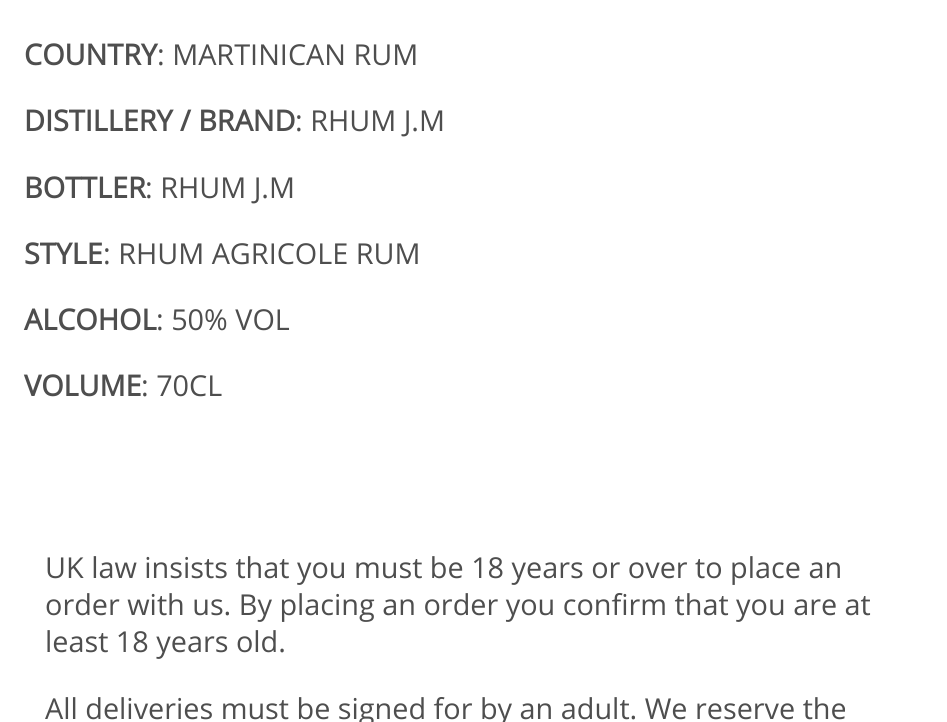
import math
import cairo

surface = cairo.ImageSurface(cairo.FORMAT_RGB24, 947, 722)
ctx = cairo.Context(surface)
options = cairo.FontOptions()
options.set_hint_metrics(cairo.HINT_METRICS_OFF)
options.set_hint_style(cairo.HINT_STYLE_NONE)
ctx.set_font_options(options)
ctx.set_miter_limit(4)


ctx.set_source_rgb(1, 1, 1)
ctx.paint()
ctx.select_font_face("Open Sans", cairo.FONT_SLANT_NORMAL, cairo.FONT_WEIGHT_BOLD)
ctx.set_font_size(28.8)
ctx.set_source_rgb(0.306, 0.306, 0.306)
ctx.move_to(24, 65)
ctx.show_text("COUNTRY")
ctx.select_font_face("Open Sans")
ctx.move_to(157, 65)
ctx.show_text(": MARTINICAN RUM")
ctx.select_font_face("Open Sans", cairo.FONT_SLANT_NORMAL, cairo.FONT_WEIGHT_BOLD)
ctx.move_to(24, 131)
ctx.show_text("DISTILLERY / BRAND")
ctx.select_font_face("Open Sans")
ctx.move_to(295, 131)
ctx.show_text(": RHUM J.M")
ctx.select_font_face("Open Sans", cairo.FONT_SLANT_NORMAL, cairo.FONT_WEIGHT_BOLD)
ctx.move_to(24, 198)
ctx.show_text("BOTTLER")
ctx.select_font_face("Open Sans")
ctx.move_to(145, 198)
ctx.show_text(": RHUM J.M")
ctx.select_font_face("Open Sans", cairo.FONT_SLANT_NORMAL, cairo.FONT_WEIGHT_BOLD)
ctx.move_to(24, 264)
ctx.show_text("STYLE")
ctx.select_font_face("Open Sans")
ctx.move_to(103, 264)
ctx.show_text(": RHUM AGRICOLE RUM")
ctx.select_font_face("Open Sans", cairo.FONT_SLANT_NORMAL, cairo.FONT_WEIGHT_BOLD)
ctx.move_to(24, 330)
ctx.show_text("ALCOHOL")
ctx.select_font_face("Open Sans")
ctx.move_to(156, 330)
ctx.show_text(": 50% VOL")
ctx.select_font_face("Open Sans", cairo.FONT_SLANT_NORMAL, cairo.FONT_WEIGHT_BOLD)
ctx.move_to(24, 396)
ctx.show_text("VOLUME")
ctx.select_font_face("Open Sans")
ctx.move_to(141, 396)
ctx.show_text(": 70CL")
ctx.move_to(45, 578)
ctx.show_text("UK law insists that you must be 18 years or over to place an")
ctx.move_to(45, 615)
ctx.show_text("order with us. By placing an order you confirm that you are at")
ctx.move_to(45, 652)
ctx.show_text("least 18 years old.")
ctx.move_to(45, 719)
ctx.show_text("All deliveries must be signed for by an adult. We reserve the")
surface.write_to_png("page.png")
